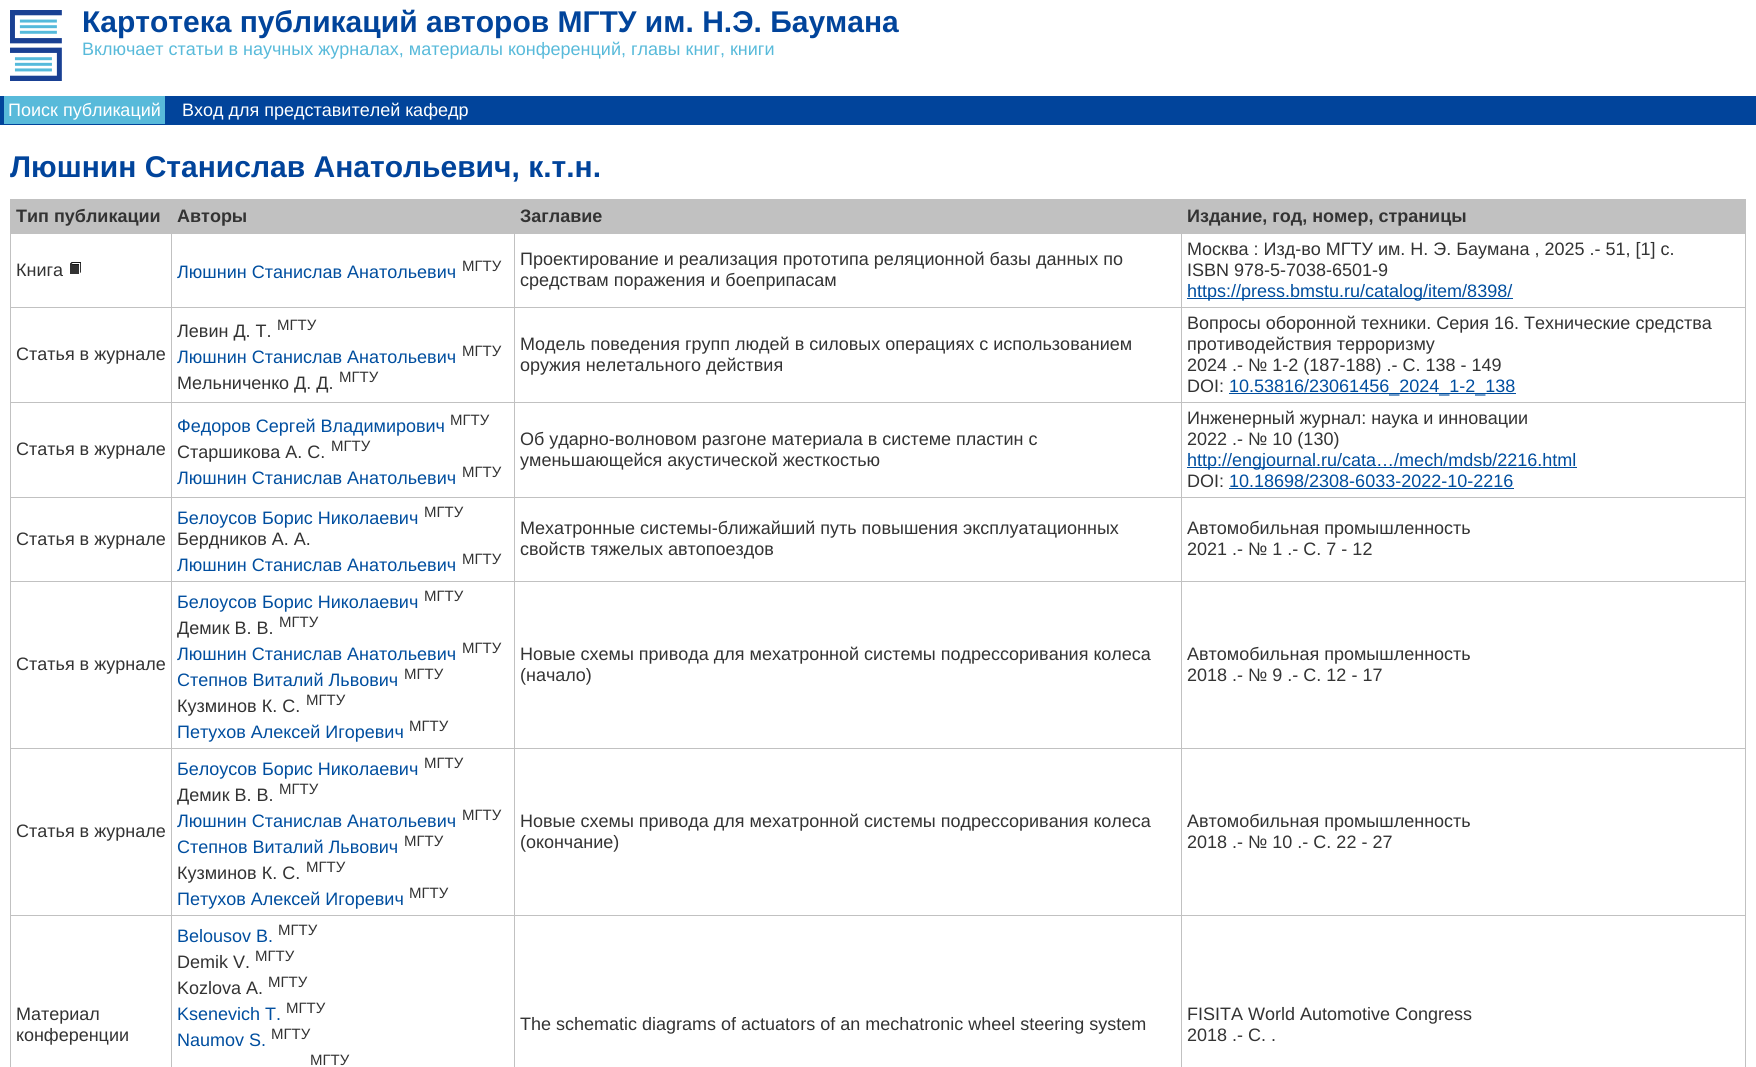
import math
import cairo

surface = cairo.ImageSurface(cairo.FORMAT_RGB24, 1756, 1067)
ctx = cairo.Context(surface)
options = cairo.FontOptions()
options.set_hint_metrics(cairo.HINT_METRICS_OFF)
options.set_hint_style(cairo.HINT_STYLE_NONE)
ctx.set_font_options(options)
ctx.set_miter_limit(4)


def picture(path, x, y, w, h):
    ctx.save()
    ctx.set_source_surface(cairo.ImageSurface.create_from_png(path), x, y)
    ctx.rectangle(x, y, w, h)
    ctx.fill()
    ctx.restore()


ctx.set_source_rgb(1, 1, 1)
ctx.paint()
picture("img1.png", 10, 10, 52, 71)
ctx.select_font_face("Liberation Sans", cairo.FONT_SLANT_NORMAL, cairo.FONT_WEIGHT_BOLD)
ctx.set_font_size(30)
ctx.set_source_rgb(0.004, 0.267, 0.608)
ctx.move_to(82, 32)
ctx.show_text("Картотека публикаций авторов МГТУ им. Н.Э. Баумана")
ctx.select_font_face("Liberation Sans")
ctx.set_font_size(18)
ctx.set_source_rgb(0.345, 0.729, 0.855)
ctx.move_to(82, 55)
ctx.show_text("Включает статьи в научных журналах, материалы конференций, главы книг, книги")
ctx.set_source_rgb(0.004, 0.267, 0.608)
ctx.rectangle(0, 96, 1756, 29)
ctx.fill()
ctx.set_source_rgb(0.345, 0.729, 0.855)
ctx.rectangle(4, 96, 161, 28)
ctx.fill()
ctx.set_source_rgb(1, 1, 1)
ctx.move_to(8, 116)
ctx.show_text("Поиск публикаций")
ctx.move_to(182, 116)
ctx.show_text("Вход для представителей кафедр")
ctx.select_font_face("Liberation Sans", cairo.FONT_SLANT_NORMAL, cairo.FONT_WEIGHT_BOLD)
ctx.set_font_size(30)
ctx.set_source_rgb(0.004, 0.267, 0.608)
ctx.move_to(10, 177)
ctx.show_text("Люшнин Станислав Анатольевич, к.т.н.")
ctx.set_source_rgb(0.757, 0.757, 0.757)
ctx.rectangle(11, 200, 161, 33)
ctx.fill()
ctx.rectangle(10, 199, 162, 1)
ctx.fill()
ctx.rectangle(1181, 233, 565, 1)
ctx.fill()
ctx.rectangle(1181, 307, 565, 1)
ctx.fill()
ctx.rectangle(1181, 402, 565, 1)
ctx.fill()
ctx.rectangle(1181, 497, 565, 1)
ctx.fill()
ctx.rectangle(1181, 581, 565, 1)
ctx.fill()
ctx.rectangle(1181, 748, 565, 1)
ctx.fill()
ctx.rectangle(1181, 915, 565, 1)
ctx.fill()
ctx.rectangle(1181, 915, 1, 152)
ctx.fill()
ctx.rectangle(514, 915, 668, 1)
ctx.fill()
ctx.rectangle(1181, 748, 1, 168)
ctx.fill()
ctx.rectangle(514, 748, 668, 1)
ctx.fill()
ctx.rectangle(1181, 581, 1, 168)
ctx.fill()
ctx.rectangle(514, 581, 668, 1)
ctx.fill()
ctx.rectangle(1181, 497, 1, 85)
ctx.fill()
ctx.rectangle(514, 497, 668, 1)
ctx.fill()
ctx.rectangle(1181, 402, 1, 96)
ctx.fill()
ctx.rectangle(514, 402, 668, 1)
ctx.fill()
ctx.rectangle(1181, 307, 1, 96)
ctx.fill()
ctx.rectangle(514, 307, 668, 1)
ctx.fill()
ctx.rectangle(1181, 233, 1, 75)
ctx.fill()
ctx.rectangle(514, 233, 668, 1)
ctx.fill()
ctx.rectangle(514, 915, 1, 152)
ctx.fill()
ctx.rectangle(171, 915, 344, 1)
ctx.fill()
ctx.rectangle(514, 748, 1, 168)
ctx.fill()
ctx.rectangle(171, 748, 344, 1)
ctx.fill()
ctx.rectangle(514, 581, 1, 168)
ctx.fill()
ctx.rectangle(171, 581, 344, 1)
ctx.fill()
ctx.rectangle(514, 497, 1, 85)
ctx.fill()
ctx.rectangle(171, 497, 344, 1)
ctx.fill()
ctx.rectangle(514, 402, 1, 96)
ctx.fill()
ctx.rectangle(171, 402, 344, 1)
ctx.fill()
ctx.rectangle(514, 307, 1, 96)
ctx.fill()
ctx.rectangle(171, 307, 344, 1)
ctx.fill()
ctx.rectangle(514, 233, 1, 75)
ctx.fill()
ctx.rectangle(171, 233, 344, 1)
ctx.fill()
ctx.rectangle(171, 915, 1, 152)
ctx.fill()
ctx.rectangle(10, 915, 162, 1)
ctx.fill()
ctx.rectangle(171, 748, 1, 168)
ctx.fill()
ctx.rectangle(10, 748, 162, 1)
ctx.fill()
ctx.rectangle(171, 581, 1, 168)
ctx.fill()
ctx.rectangle(10, 581, 162, 1)
ctx.fill()
ctx.rectangle(171, 497, 1, 85)
ctx.fill()
ctx.rectangle(10, 497, 162, 1)
ctx.fill()
ctx.rectangle(171, 402, 1, 96)
ctx.fill()
ctx.rectangle(10, 402, 162, 1)
ctx.fill()
ctx.rectangle(171, 307, 1, 96)
ctx.fill()
ctx.rectangle(10, 307, 162, 1)
ctx.fill()
ctx.rectangle(171, 233, 1, 75)
ctx.fill()
ctx.rectangle(10, 233, 162, 1)
ctx.fill()
ctx.rectangle(10, 915, 1, 152)
ctx.fill()
ctx.rectangle(10, 748, 1, 168)
ctx.fill()
ctx.rectangle(10, 581, 1, 168)
ctx.fill()
ctx.rectangle(10, 497, 1, 85)
ctx.fill()
ctx.rectangle(10, 402, 1, 96)
ctx.fill()
ctx.rectangle(10, 307, 1, 96)
ctx.fill()
ctx.rectangle(10, 233, 1, 75)
ctx.fill()
ctx.rectangle(10, 199, 1, 35)
ctx.fill()
ctx.set_font_size(18)
ctx.set_source_rgb(0.2, 0.2, 0.2)
ctx.move_to(16, 222)
ctx.show_text("Тип публикации")
ctx.set_source_rgb(0.757, 0.757, 0.757)
ctx.rectangle(172, 199, 1574, 34)
ctx.fill()
ctx.set_source_rgb(0.2, 0.2, 0.2)
ctx.move_to(177, 222)
ctx.show_text("Авторы")
ctx.move_to(520, 222)
ctx.show_text("Заглавие")
ctx.move_to(1187, 222)
ctx.show_text("Издание, год, номер, страницы")
ctx.select_font_face("Liberation Sans")
ctx.move_to(16, 276)
ctx.show_text("Книга")
picture("img2.png", 70, 262, 11, 12)
ctx.set_source_rgb(0, 0.306, 0.624)
ctx.move_to(177, 278)
ctx.show_text("Люшнин Станислав Анатольевич")
ctx.set_font_size(15)
ctx.set_source_rgb(0.2, 0.2, 0.2)
ctx.move_to(462, 271)
ctx.show_text("МГТУ")
ctx.set_font_size(18)
ctx.move_to(520, 265)
ctx.show_text("Проектирование и реализация прототипа реляционной базы данных по")
ctx.move_to(520, 286)
ctx.show_text("средствам поражения и боеприпасам")
ctx.set_source_rgb(0.757, 0.757, 0.757)
ctx.rectangle(1745, 915, 1, 152)
ctx.fill()
ctx.rectangle(1745, 748, 1, 168)
ctx.fill()
ctx.rectangle(1745, 581, 1, 168)
ctx.fill()
ctx.rectangle(1745, 497, 1, 85)
ctx.fill()
ctx.rectangle(1745, 402, 1, 96)
ctx.fill()
ctx.rectangle(1745, 307, 1, 96)
ctx.fill()
ctx.rectangle(1745, 233, 1, 75)
ctx.fill()
ctx.set_source_rgb(0.2, 0.2, 0.2)
ctx.move_to(1187, 255)
ctx.show_text("Москва : Изд-во МГТУ им. Н. Э. Баумана , 2025 .- 51, [1] с.")
ctx.move_to(1187, 276)
ctx.show_text("ISBN 978-5-7038-6501-9")
ctx.set_source_rgb(0, 0.306, 0.624)
ctx.rectangle(1187, 298, 326, 1)
ctx.fill()
ctx.move_to(1187, 297)
ctx.show_text("https://press.bmstu.ru/catalog/item/8398/")
ctx.set_source_rgb(0.2, 0.2, 0.2)
ctx.move_to(16, 360)
ctx.show_text("Статья в журнале")
ctx.move_to(177, 337)
ctx.show_text("Левин Д. Т.")
ctx.set_font_size(15)
ctx.move_to(277, 330)
ctx.show_text("МГТУ")
ctx.set_font_size(18)
ctx.set_source_rgb(0, 0.306, 0.624)
ctx.move_to(177, 363)
ctx.show_text("Люшнин Станислав Анатольевич")
ctx.set_font_size(15)
ctx.set_source_rgb(0.2, 0.2, 0.2)
ctx.move_to(462, 356)
ctx.show_text("МГТУ")
ctx.set_font_size(18)
ctx.move_to(177, 389)
ctx.show_text("Мельниченко Д. Д.")
ctx.set_font_size(15)
ctx.move_to(339, 382)
ctx.show_text("МГТУ")
ctx.set_font_size(18)
ctx.move_to(520, 350)
ctx.show_text("Модель поведения групп людей в силовых операциях с использованием")
ctx.move_to(520, 371)
ctx.show_text("оружия нелетального действия")
ctx.move_to(1187, 329)
ctx.show_text("Вопросы оборонной техники. Серия 16. Технические средства")
ctx.move_to(1187, 350)
ctx.show_text("противодействия терроризму")
ctx.move_to(1187, 371)
ctx.show_text("2024 .- № 1-2 (187-188) .- С. 138 - 149")
ctx.move_to(1187, 392)
ctx.show_text("DOI:")
ctx.set_source_rgb(0, 0.306, 0.624)
ctx.rectangle(1229, 393, 287, 1)
ctx.fill()
ctx.move_to(1229, 392)
ctx.show_text("10.53816/23061456_2024_1-2_138")
ctx.set_source_rgb(0.2, 0.2, 0.2)
ctx.move_to(16, 455)
ctx.show_text("Статья в журнале")
ctx.set_source_rgb(0, 0.306, 0.624)
ctx.move_to(177, 432)
ctx.show_text("Федоров Сергей Владимирович")
ctx.set_font_size(15)
ctx.set_source_rgb(0.2, 0.2, 0.2)
ctx.move_to(450, 425)
ctx.show_text("МГТУ")
ctx.set_font_size(18)
ctx.move_to(177, 458)
ctx.show_text("Старшикова А. С.")
ctx.set_font_size(15)
ctx.move_to(331, 451)
ctx.show_text("МГТУ")
ctx.set_font_size(18)
ctx.set_source_rgb(0, 0.306, 0.624)
ctx.move_to(177, 484)
ctx.show_text("Люшнин Станислав Анатольевич")
ctx.set_font_size(15)
ctx.set_source_rgb(0.2, 0.2, 0.2)
ctx.move_to(462, 477)
ctx.show_text("МГТУ")
ctx.set_font_size(18)
ctx.move_to(520, 445)
ctx.show_text("Об ударно-волновом разгоне материала в системе пластин с")
ctx.move_to(520, 466)
ctx.show_text("уменьшающейся акустической жесткостью")
ctx.move_to(1187, 424)
ctx.show_text("Инженерный журнал: наука и инновации")
ctx.move_to(1187, 445)
ctx.show_text("2022 .- № 10 (130)")
ctx.set_source_rgb(0, 0.306, 0.624)
ctx.rectangle(1187, 467, 390, 1)
ctx.fill()
ctx.move_to(1187, 466)
ctx.show_text("http://engjournal.ru/cata…/mech/mdsb/2216.html")
ctx.set_source_rgb(0.2, 0.2, 0.2)
ctx.move_to(1187, 487)
ctx.show_text("DOI:")
ctx.set_source_rgb(0, 0.306, 0.624)
ctx.move_to(1229, 487)
ctx.show_text("10.18698/2308-6033-2022-10-2216")
ctx.rectangle(1229, 488, 285, 1)
ctx.fill()
ctx.set_source_rgb(0.2, 0.2, 0.2)
ctx.move_to(16, 545)
ctx.show_text("Статья в журнале")
ctx.set_source_rgb(0, 0.306, 0.624)
ctx.move_to(177, 524)
ctx.show_text("Белоусов Борис Николаевич")
ctx.set_font_size(15)
ctx.set_source_rgb(0.2, 0.2, 0.2)
ctx.move_to(424, 517)
ctx.show_text("МГТУ")
ctx.set_font_size(18)
ctx.move_to(177, 545)
ctx.show_text("Бердников А. А.")
ctx.set_source_rgb(0, 0.306, 0.624)
ctx.move_to(177, 571)
ctx.show_text("Люшнин Станислав Анатольевич")
ctx.set_font_size(15)
ctx.set_source_rgb(0.2, 0.2, 0.2)
ctx.move_to(462, 564)
ctx.show_text("МГТУ")
ctx.set_font_size(18)
ctx.move_to(520, 534)
ctx.show_text("Мехатронные системы-ближайший путь повышения эксплуатационных")
ctx.move_to(520, 555)
ctx.show_text("свойств тяжелых автопоездов")
ctx.move_to(1187, 534)
ctx.show_text("Автомобильная промышленность")
ctx.move_to(1187, 555)
ctx.show_text("2021 .- № 1 .- С. 7 - 12")
ctx.move_to(16, 670)
ctx.show_text("Статья в журнале")
ctx.set_source_rgb(0, 0.306, 0.624)
ctx.move_to(177, 608)
ctx.show_text("Белоусов Борис Николаевич")
ctx.set_font_size(15)
ctx.set_source_rgb(0.2, 0.2, 0.2)
ctx.move_to(424, 601)
ctx.show_text("МГТУ")
ctx.set_font_size(18)
ctx.move_to(177, 634)
ctx.show_text("Демик В. В.")
ctx.set_font_size(15)
ctx.move_to(279, 627)
ctx.show_text("МГТУ")
ctx.set_font_size(18)
ctx.set_source_rgb(0, 0.306, 0.624)
ctx.move_to(177, 660)
ctx.show_text("Люшнин Станислав Анатольевич")
ctx.set_font_size(15)
ctx.set_source_rgb(0.2, 0.2, 0.2)
ctx.move_to(462, 653)
ctx.show_text("МГТУ")
ctx.set_font_size(18)
ctx.set_source_rgb(0, 0.306, 0.624)
ctx.move_to(177, 686)
ctx.show_text("Степнов Виталий Львович")
ctx.set_font_size(15)
ctx.set_source_rgb(0.2, 0.2, 0.2)
ctx.move_to(404, 679)
ctx.show_text("МГТУ")
ctx.set_font_size(18)
ctx.move_to(177, 712)
ctx.show_text("Кузминов К. С.")
ctx.set_font_size(15)
ctx.move_to(306, 705)
ctx.show_text("МГТУ")
ctx.set_font_size(18)
ctx.set_source_rgb(0, 0.306, 0.624)
ctx.move_to(177, 738)
ctx.show_text("Петухов Алексей Игоревич")
ctx.set_font_size(15)
ctx.set_source_rgb(0.2, 0.2, 0.2)
ctx.move_to(409, 731)
ctx.show_text("МГТУ")
ctx.set_font_size(18)
ctx.move_to(520, 660)
ctx.show_text("Новые схемы привода для мехатронной системы подрессоривания колеса")
ctx.move_to(520, 681)
ctx.show_text("(начало)")
ctx.move_to(1187, 660)
ctx.show_text("Автомобильная промышленность")
ctx.move_to(1187, 681)
ctx.show_text("2018 .- № 9 .- С. 12 - 17")
ctx.move_to(16, 837)
ctx.show_text("Статья в журнале")
ctx.set_source_rgb(0, 0.306, 0.624)
ctx.move_to(177, 775)
ctx.show_text("Белоусов Борис Николаевич")
ctx.set_font_size(15)
ctx.set_source_rgb(0.2, 0.2, 0.2)
ctx.move_to(424, 768)
ctx.show_text("МГТУ")
ctx.set_font_size(18)
ctx.move_to(177, 801)
ctx.show_text("Демик В. В.")
ctx.set_font_size(15)
ctx.move_to(279, 794)
ctx.show_text("МГТУ")
ctx.set_font_size(18)
ctx.set_source_rgb(0, 0.306, 0.624)
ctx.move_to(177, 827)
ctx.show_text("Люшнин Станислав Анатольевич")
ctx.set_font_size(15)
ctx.set_source_rgb(0.2, 0.2, 0.2)
ctx.move_to(462, 820)
ctx.show_text("МГТУ")
ctx.set_font_size(18)
ctx.set_source_rgb(0, 0.306, 0.624)
ctx.move_to(177, 853)
ctx.show_text("Степнов Виталий Львович")
ctx.set_font_size(15)
ctx.set_source_rgb(0.2, 0.2, 0.2)
ctx.move_to(404, 846)
ctx.show_text("МГТУ")
ctx.set_font_size(18)
ctx.move_to(177, 879)
ctx.show_text("Кузминов К. С.")
ctx.set_font_size(15)
ctx.move_to(306, 872)
ctx.show_text("МГТУ")
ctx.set_font_size(18)
ctx.set_source_rgb(0, 0.306, 0.624)
ctx.move_to(177, 905)
ctx.show_text("Петухов Алексей Игоревич")
ctx.set_font_size(15)
ctx.set_source_rgb(0.2, 0.2, 0.2)
ctx.move_to(409, 898)
ctx.show_text("МГТУ")
ctx.set_font_size(18)
ctx.move_to(520, 827)
ctx.show_text("Новые схемы привода для мехатронной системы подрессоривания колеса")
ctx.move_to(520, 848)
ctx.show_text("(окончание)")
ctx.move_to(1187, 827)
ctx.show_text("Автомобильная промышленность")
ctx.move_to(1187, 848)
ctx.show_text("2018 .- № 10 .- С. 22 - 27")
ctx.move_to(16, 1020)
ctx.show_text("Материал")
ctx.move_to(16, 1041)
ctx.show_text("конференции")
ctx.set_source_rgb(0, 0.306, 0.624)
ctx.move_to(177, 942)
ctx.show_text("Belousov B.")
ctx.set_font_size(15)
ctx.set_source_rgb(0.2, 0.2, 0.2)
ctx.move_to(278, 935)
ctx.show_text("МГТУ")
ctx.set_font_size(18)
ctx.move_to(177, 968)
ctx.show_text("Demik V.")
ctx.set_font_size(15)
ctx.move_to(255, 961)
ctx.show_text("МГТУ")
ctx.set_font_size(18)
ctx.move_to(177, 994)
ctx.show_text("Kozlova A.")
ctx.set_font_size(15)
ctx.move_to(268, 987)
ctx.show_text("МГТУ")
ctx.set_font_size(18)
ctx.set_source_rgb(0, 0.306, 0.624)
ctx.move_to(177, 1020)
ctx.show_text("Ksenevich T.")
ctx.set_font_size(15)
ctx.set_source_rgb(0.2, 0.2, 0.2)
ctx.move_to(286, 1013)
ctx.show_text("МГТУ")
ctx.set_font_size(18)
ctx.set_source_rgb(0, 0.306, 0.624)
ctx.move_to(177, 1046)
ctx.show_text("Naumov S.")
ctx.set_font_size(15)
ctx.set_source_rgb(0.2, 0.2, 0.2)
ctx.move_to(271, 1039)
ctx.show_text("МГТУ")
ctx.move_to(310, 1065)
ctx.show_text("МГТУ")
ctx.set_font_size(18)
ctx.move_to(520, 1030)
ctx.show_text("The schematic diagrams of actuators of an mechatronic wheel steering system")
ctx.move_to(1187, 1020)
ctx.show_text("FISITA World Automotive Congress")
ctx.move_to(1187, 1041)
ctx.show_text("2018 .- С. .")
surface.write_to_png("page.png")
